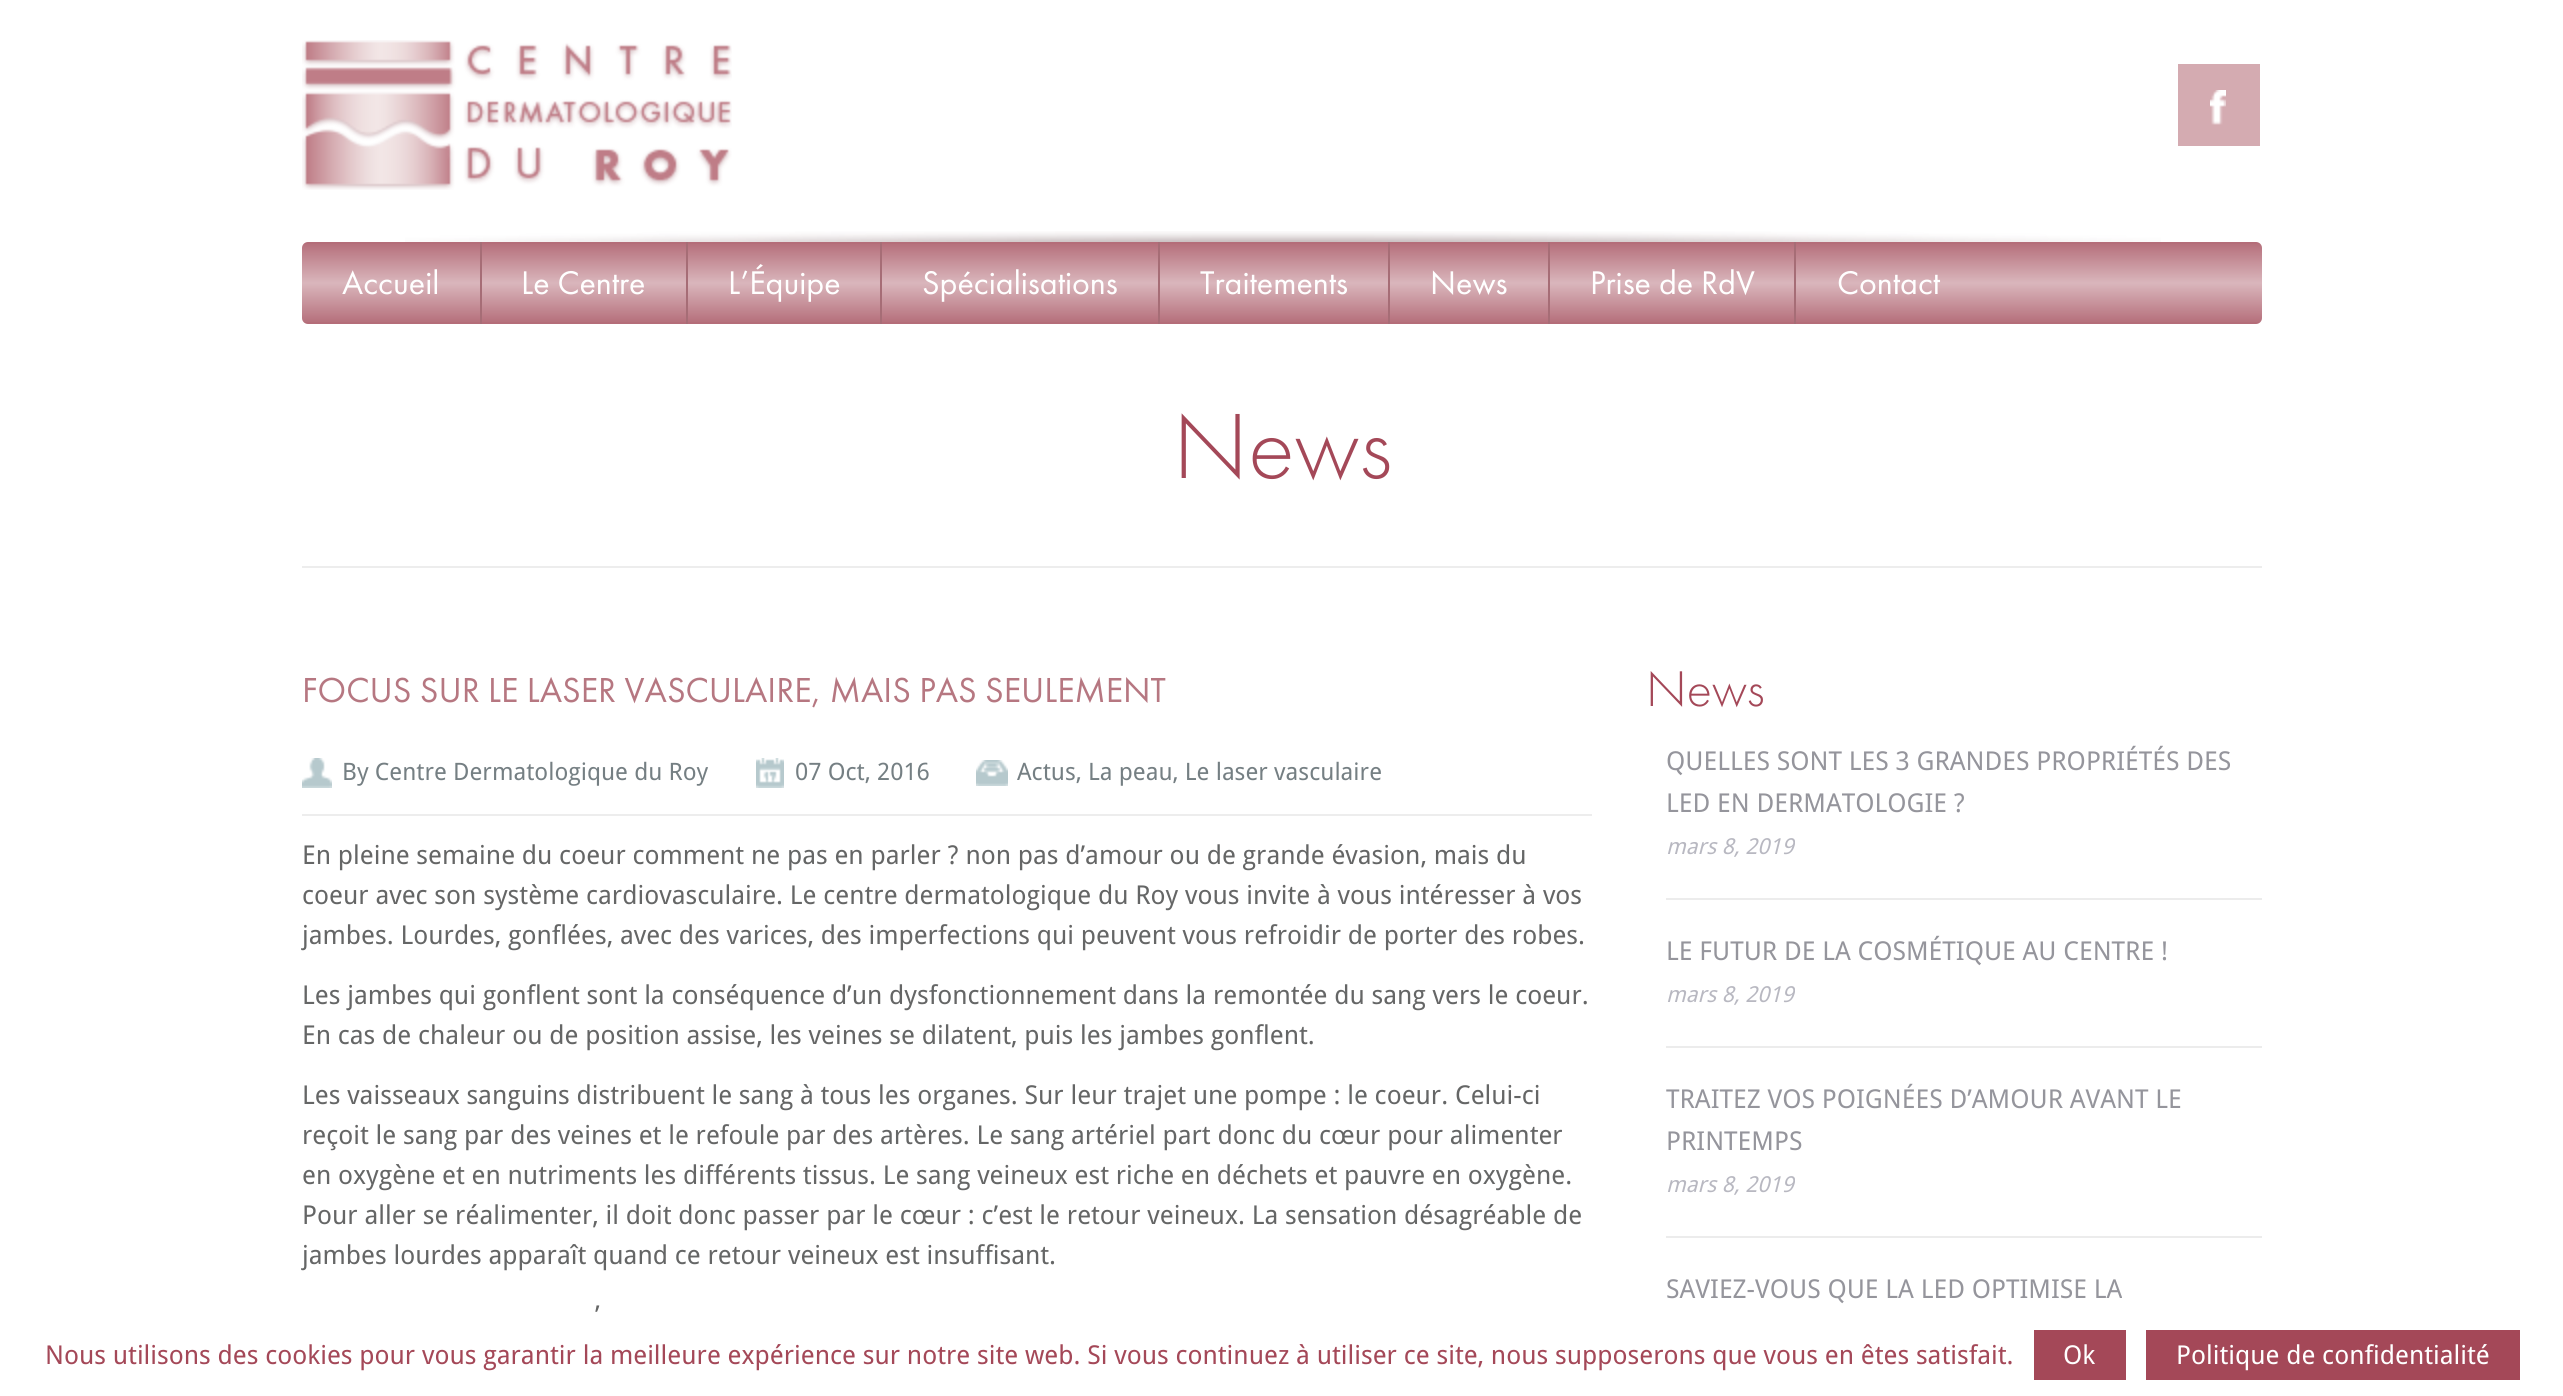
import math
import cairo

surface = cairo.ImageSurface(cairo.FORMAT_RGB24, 2563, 1396)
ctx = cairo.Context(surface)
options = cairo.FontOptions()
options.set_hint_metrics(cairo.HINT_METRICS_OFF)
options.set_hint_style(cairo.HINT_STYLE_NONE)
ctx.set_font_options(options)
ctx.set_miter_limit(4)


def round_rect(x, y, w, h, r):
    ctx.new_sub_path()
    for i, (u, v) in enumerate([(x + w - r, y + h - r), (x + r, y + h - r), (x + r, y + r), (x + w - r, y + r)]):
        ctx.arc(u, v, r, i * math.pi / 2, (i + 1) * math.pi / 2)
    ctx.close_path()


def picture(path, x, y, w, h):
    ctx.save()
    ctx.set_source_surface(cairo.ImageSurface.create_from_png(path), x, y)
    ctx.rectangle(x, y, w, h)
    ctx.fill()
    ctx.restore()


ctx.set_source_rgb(1, 1, 1)
ctx.paint()
picture("img1.png", 405, 231, 1756, 11)
picture("img2.png", 302, 40, 430, 150)
ctx.set_source_rgb(0.831, 0.671, 0.694)
ctx.rectangle(2178, 64, 82, 82)
ctx.fill()
picture("img3.png", 2210, 90, 16, 35)
ctx.set_source_rgb(0.706, 0.427, 0.475)
round_rect(302, 242, 1960, 82, 6)
ctx.fill()
gradient = cairo.LinearGradient(1282, 242, 1282, 324)
gradient.add_color_stop_rgba(0, 1, 1, 1, 0)
gradient.add_color_stop_rgba(0.5, 1, 1, 1, 0.5)
gradient.add_color_stop_rgba(1, 1, 1, 1, 0)
ctx.set_source(gradient)
ctx.rectangle(302, 244, 1960, 78)
ctx.fill()
ctx.set_source_rgb(0.651, 0.427, 0.463)
ctx.rectangle(480, 242, 2, 82)
ctx.fill()
ctx.select_font_face("Futura PT")
ctx.set_font_size(34)
ctx.set_source_rgb(1, 1, 1)
ctx.move_to(342, 294)
ctx.show_text("Accueil")
ctx.set_source_rgb(0.651, 0.427, 0.463)
ctx.rectangle(686, 242, 2, 82)
ctx.fill()
ctx.set_source_rgb(1, 1, 1)
ctx.move_to(521, 294)
ctx.show_text("Le Centre")
ctx.set_source_rgb(0.651, 0.427, 0.463)
ctx.rectangle(880, 242, 2, 82)
ctx.fill()
ctx.set_source_rgb(1, 1, 1)
ctx.move_to(728, 294)
ctx.show_text("L’Équipe")
ctx.set_source_rgb(0.651, 0.427, 0.463)
ctx.rectangle(1158, 242, 2, 82)
ctx.fill()
ctx.set_source_rgb(1, 1, 1)
ctx.move_to(922, 294)
ctx.show_text("Spécialisations")
ctx.set_source_rgb(0.651, 0.427, 0.463)
ctx.rectangle(1388, 242, 2, 82)
ctx.fill()
ctx.set_source_rgb(1, 1, 1)
ctx.move_to(1200, 294)
ctx.show_text("Traitements")
ctx.set_source_rgb(0.651, 0.427, 0.463)
ctx.rectangle(1548, 242, 2, 82)
ctx.fill()
ctx.set_source_rgb(1, 1, 1)
ctx.move_to(1430, 294)
ctx.show_text("News")
ctx.set_source_rgb(0.651, 0.427, 0.463)
ctx.rectangle(1794, 242, 2, 82)
ctx.fill()
ctx.set_source_rgb(1, 1, 1)
ctx.move_to(1590, 294)
ctx.show_text("Prise de RdV")
ctx.move_to(1837, 294)
ctx.show_text("Contact")
ctx.set_source_rgb(0.929, 0.929, 0.929)
ctx.rectangle(302, 566, 1960, 2)
ctx.fill()
ctx.select_font_face("Futura PT Light")
ctx.set_font_size(96)
ctx.set_source_rgb(0.643, 0.282, 0.345)
ctx.move_to(1173, 478)
ctx.show_text("News")
ctx.select_font_face("Futura PT")
ctx.set_font_size(36)
ctx.set_source_rgb(0.714, 0.467, 0.506)
ctx.move_to(302, 702)
ctx.show_text("FOCUS SUR LE LASER VASCULAIRE, MAIS PAS SEULEMENT")
ctx.set_source_rgb(0.929, 0.929, 0.929)
ctx.rectangle(302, 814, 1290, 2)
ctx.fill()
picture("img4.png", 302, 758, 30, 30)
ctx.select_font_face("Droid Sans")
ctx.set_font_size(24)
ctx.set_source_rgb(0.459, 0.498, 0.514)
ctx.move_to(342, 780)
ctx.show_text("By Centre Dermatologique du Roy")
picture("img5.png", 756, 758, 28, 30)
ctx.move_to(795, 780)
ctx.show_text("07 Oct, 2016")
picture("img6.png", 976, 760, 32, 26)
ctx.move_to(1017, 780)
ctx.show_text("Actus, La peau, Le laser vasculaire")
ctx.set_font_size(26)
ctx.set_source_rgb(0.396, 0.4, 0.4)
ctx.move_to(302, 864)
ctx.show_text("En pleine semaine du coeur comment ne pas en parler ? non pas d’amour ou de grande évasion, mais du")
ctx.move_to(302, 904)
ctx.show_text("coeur avec son système cardiovasculaire. Le centre dermatologique du Roy vous invite à vous intéresser à vos")
ctx.move_to(302, 944)
ctx.show_text("jambes. Lourdes, gonflées, avec des varices, des imperfections qui peuvent vous refroidir de porter des robes.")
ctx.move_to(302, 1004)
ctx.show_text("Les jambes qui gonflent sont la conséquence d’un dysfonctionnement dans la remontée du sang vers le coeur.")
ctx.move_to(302, 1044)
ctx.show_text("En cas de chaleur ou de position assise, les veines se dilatent, puis les jambes gonflent.")
ctx.move_to(302, 1104)
ctx.show_text("Les vaisseaux sanguins distribuent le sang à tous les organes. Sur leur trajet une pompe : le coeur. Celui-ci")
ctx.move_to(302, 1144)
ctx.show_text("reçoit le sang par des veines et le refoule par des artères. Le sang artériel part donc du cœur pour alimenter")
ctx.move_to(302, 1184)
ctx.show_text("en oxygène et en nutriments les différents tissus. Le sang veineux est riche en déchets et pauvre en oxygène.")
ctx.move_to(302, 1224)
ctx.show_text("Pour aller se réalimenter, il doit donc passer par le cœur : c’est le retour veineux. La sensation désagréable de")
ctx.move_to(302, 1264)
ctx.show_text("jambes lourdes apparaît quand ce retour veineux est insuffisant.")
ctx.move_to(595, 1324)
ctx.show_text("’")
ctx.select_font_face("Futura PT Light")
ctx.set_font_size(52)
ctx.set_source_rgb(0.643, 0.282, 0.345)
ctx.move_to(1646, 706)
ctx.show_text("News")
ctx.set_source_rgb(0.925, 0.925, 0.925)
ctx.rectangle(1666, 898, 596, 2)
ctx.fill()
ctx.select_font_face("Droid Sans")
ctx.set_font_size(26)
ctx.set_source_rgb(0.584, 0.584, 0.612)
ctx.move_to(1666, 770)
ctx.show_text("QUELLES SONT LES 3 GRANDES PROPRIÉTÉS DES")
ctx.move_to(1666, 812)
ctx.show_text("LED EN DERMATOLOGIE ?")
ctx.select_font_face("Droid Sans", cairo.FONT_SLANT_ITALIC)
ctx.set_font_size(22)
ctx.set_source_rgb(0.722, 0.722, 0.757)
ctx.move_to(1666, 854)
ctx.show_text("mars 8, 2019")
ctx.set_source_rgb(0.925, 0.925, 0.925)
ctx.rectangle(1666, 1046, 596, 2)
ctx.fill()
ctx.select_font_face("Droid Sans")
ctx.set_font_size(26)
ctx.set_source_rgb(0.584, 0.584, 0.612)
ctx.move_to(1666, 960)
ctx.show_text("LE FUTUR DE LA COSMÉTIQUE AU CENTRE !")
ctx.select_font_face("Droid Sans", cairo.FONT_SLANT_ITALIC)
ctx.set_font_size(22)
ctx.set_source_rgb(0.722, 0.722, 0.757)
ctx.move_to(1666, 1002)
ctx.show_text("mars 8, 2019")
ctx.set_source_rgb(0.925, 0.925, 0.925)
ctx.rectangle(1666, 1236, 596, 2)
ctx.fill()
ctx.select_font_face("Droid Sans")
ctx.set_font_size(26)
ctx.set_source_rgb(0.584, 0.584, 0.612)
ctx.move_to(1666, 1108)
ctx.show_text("TRAITEZ VOS POIGNÉES D’AMOUR AVANT LE")
ctx.move_to(1666, 1150)
ctx.show_text("PRINTEMPS")
ctx.select_font_face("Droid Sans", cairo.FONT_SLANT_ITALIC)
ctx.set_font_size(22)
ctx.set_source_rgb(0.722, 0.722, 0.757)
ctx.move_to(1666, 1192)
ctx.show_text("mars 8, 2019")
ctx.select_font_face("Droid Sans")
ctx.set_font_size(26)
ctx.set_source_rgb(0.584, 0.584, 0.612)
ctx.move_to(1666, 1298)
ctx.show_text("SAVIEZ-VOUS QUE LA LED OPTIMISE LA")
ctx.set_source_rgb(0.643, 0.282, 0.345)
ctx.move_to(45, 1364)
ctx.show_text("Nous utilisons des cookies pour vous garantir la meilleure expérience sur notre site web. Si vous continuez à utiliser ce site, nous supposerons que vous en êtes satisfait.")
ctx.rectangle(2034, 1330, 92, 50)
ctx.fill()
ctx.set_source_rgb(1, 1, 1)
ctx.move_to(2063, 1364)
ctx.show_text("Ok")
ctx.set_source_rgb(0.643, 0.282, 0.345)
ctx.rectangle(2146, 1330, 374, 50)
ctx.fill()
ctx.set_source_rgb(1, 1, 1)
ctx.move_to(2176, 1364)
ctx.show_text("Politique de confidentialité")
surface.write_to_png("page.png")
